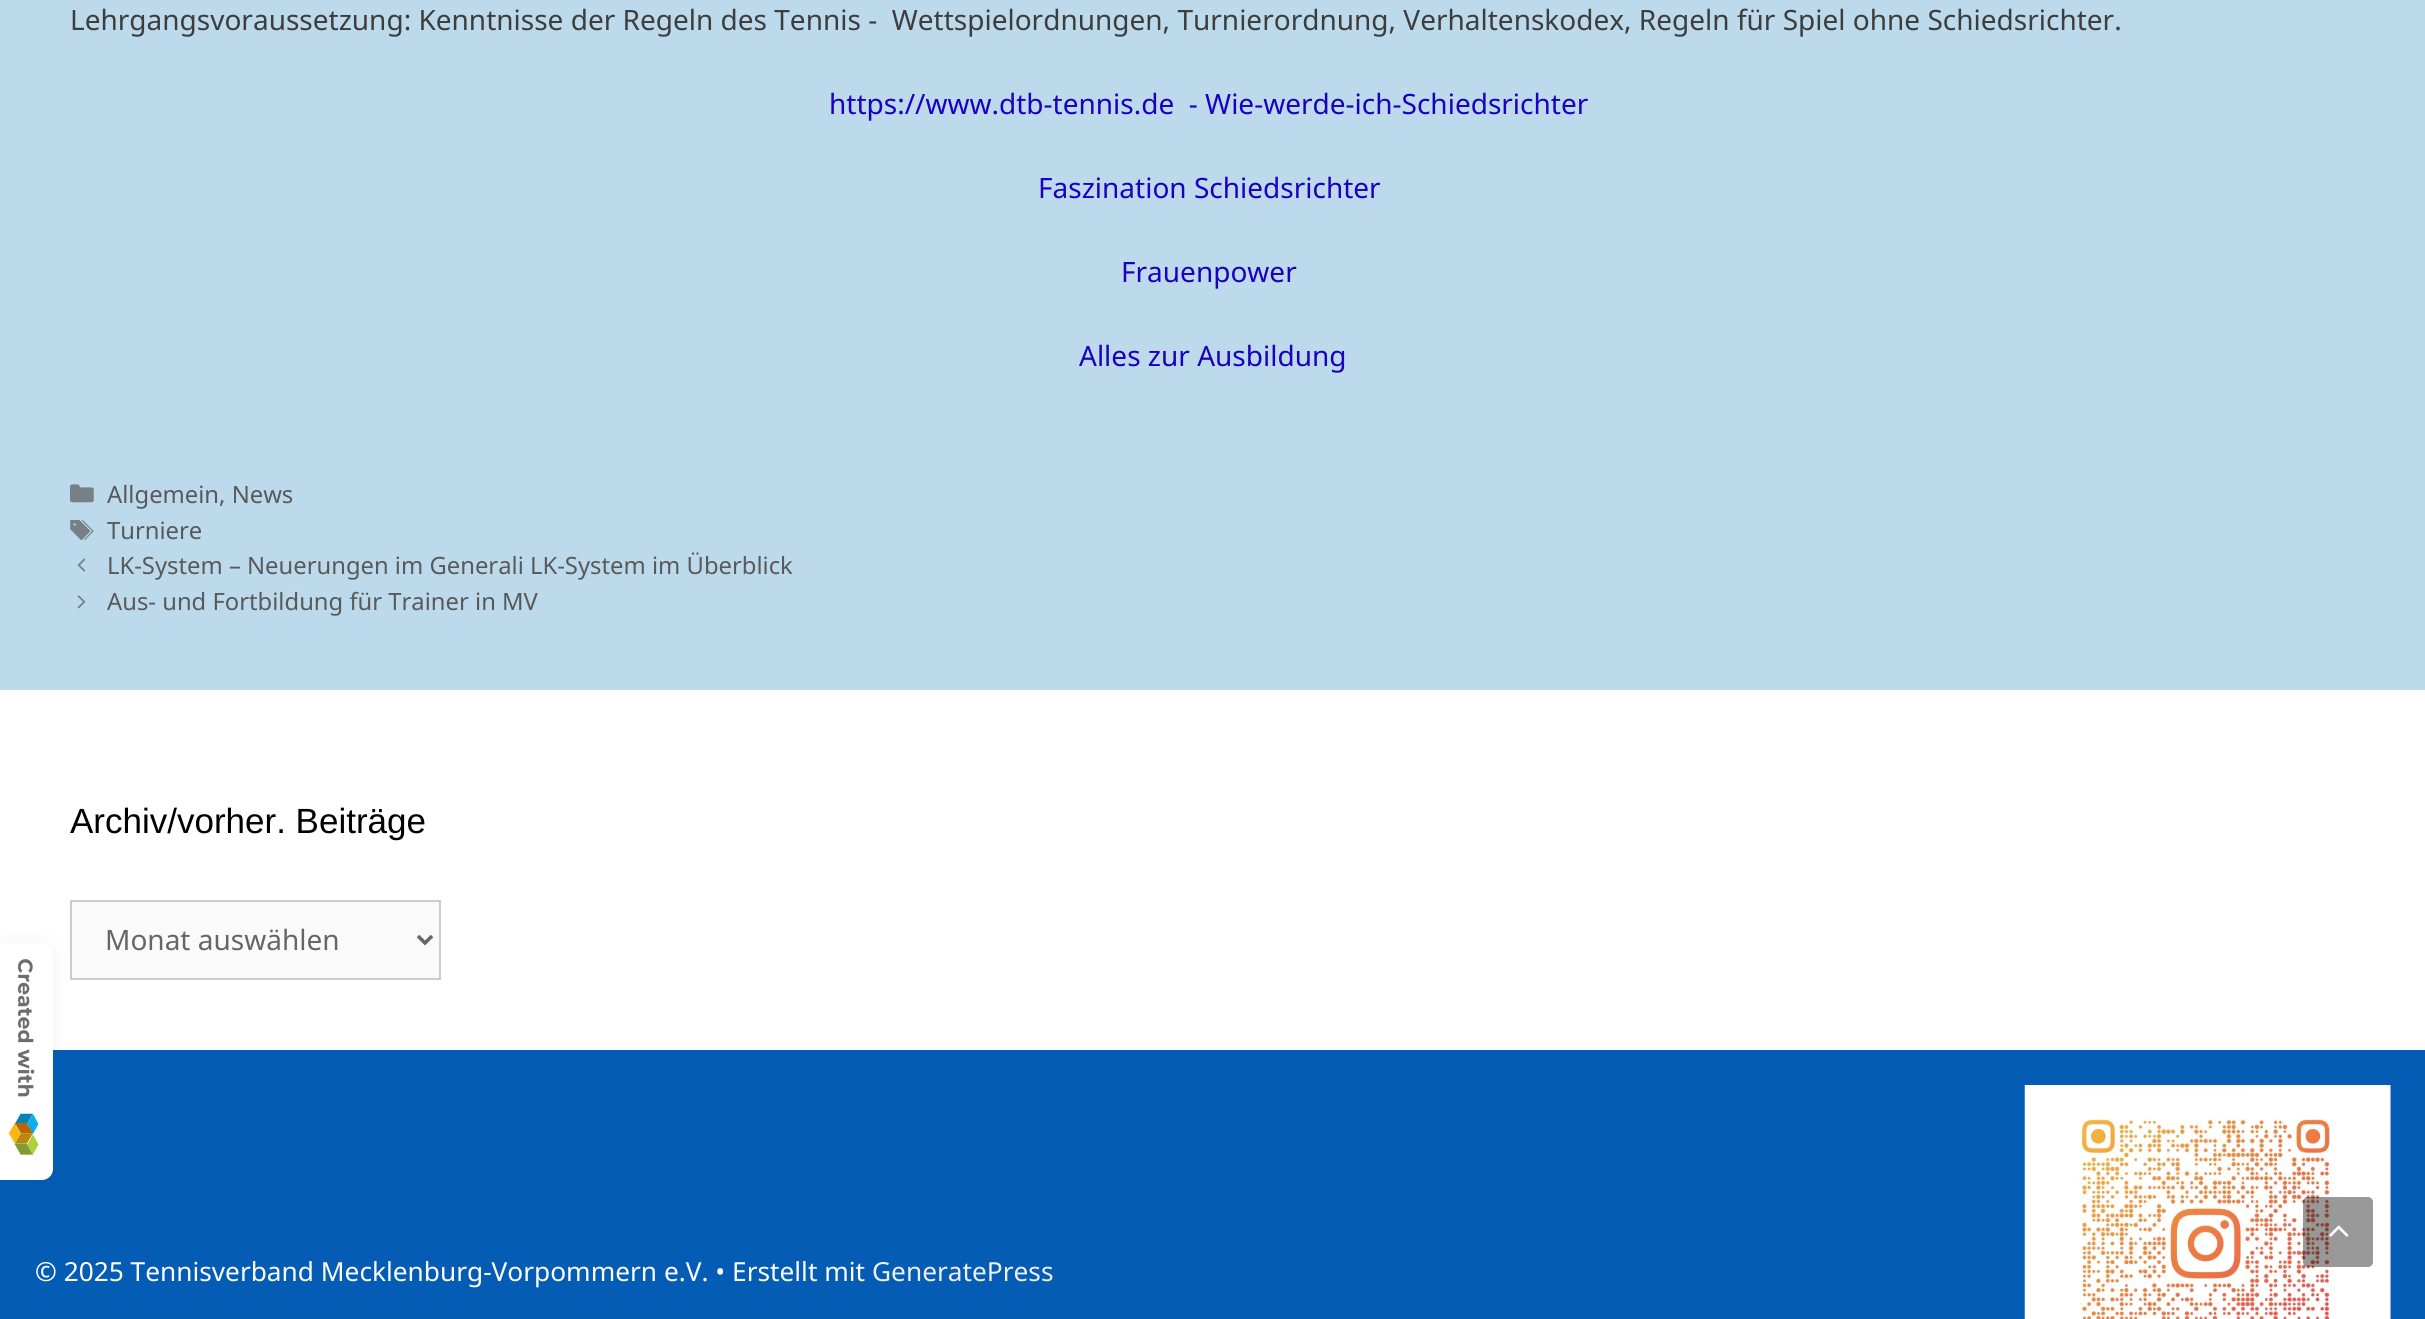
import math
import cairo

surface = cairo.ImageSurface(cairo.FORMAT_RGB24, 2425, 1319)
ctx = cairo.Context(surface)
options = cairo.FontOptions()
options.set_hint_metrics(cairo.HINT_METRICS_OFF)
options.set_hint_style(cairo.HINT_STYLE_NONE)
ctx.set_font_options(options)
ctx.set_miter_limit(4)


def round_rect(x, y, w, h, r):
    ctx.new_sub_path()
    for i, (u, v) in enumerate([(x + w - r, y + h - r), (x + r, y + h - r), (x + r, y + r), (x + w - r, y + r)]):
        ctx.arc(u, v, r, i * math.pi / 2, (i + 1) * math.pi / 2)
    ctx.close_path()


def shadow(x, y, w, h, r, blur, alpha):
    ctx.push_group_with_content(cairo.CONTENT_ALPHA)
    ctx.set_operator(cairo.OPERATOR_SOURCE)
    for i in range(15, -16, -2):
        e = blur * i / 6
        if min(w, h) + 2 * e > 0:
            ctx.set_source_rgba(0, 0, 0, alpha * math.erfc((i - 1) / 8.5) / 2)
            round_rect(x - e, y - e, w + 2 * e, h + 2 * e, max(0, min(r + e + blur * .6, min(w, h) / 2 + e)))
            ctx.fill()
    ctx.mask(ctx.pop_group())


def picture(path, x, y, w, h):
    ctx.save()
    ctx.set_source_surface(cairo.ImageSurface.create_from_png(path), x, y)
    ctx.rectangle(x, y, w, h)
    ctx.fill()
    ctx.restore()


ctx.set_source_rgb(1, 1, 1)
ctx.paint()
ctx.set_source_rgb(0.737, 0.855, 0.925)
ctx.rectangle(0, 0, 2425, 690)
ctx.fill()
ctx.select_font_face("Noto Sans")
ctx.set_font_size(28)
ctx.set_source_rgb(0.239, 0.239, 0.239)
ctx.move_to(70, 30)
ctx.show_text("Lehrgangsvoraussetzung: Kenntnisse der Regeln des Tennis -  Wettspielordnungen, Turnierordnung, Verhaltenskodex, Regeln für Spiel ohne Schiedsrichter.")
ctx.set_source_rgb(0.11, 0, 0.749)
ctx.move_to(829, 114)
ctx.show_text("https://www.dtb-tennis.de  - Wie-werde-ich-Schiedsrichter")
ctx.move_to(1038, 198)
ctx.show_text("Faszination Schiedsrichter")
ctx.move_to(1121, 282)
ctx.show_text("Frauenpower")
ctx.move_to(1079, 366)
ctx.show_text("Alles zur Ausbildung")
picture("img1.png", 70, 484, 24, 19)
ctx.set_font_size(23.8)
ctx.set_source_rgb(0.349, 0.349, 0.349)
ctx.move_to(107, 503)
ctx.show_text("Allgemein, News")
picture("img2.png", 70, 520, 24, 20)
ctx.move_to(107, 539)
ctx.show_text("Turniere")
picture("img3.png", 77, 558, 9, 14)
ctx.move_to(107, 574)
ctx.show_text("LK-System – Neuerungen im Generali LK-System im Überblick")
picture("img4.png", 77, 595, 9, 14)
ctx.move_to(107, 610)
ctx.show_text("Aus- und Fortbildung für Trainer in MV")
ctx.select_font_face("Liberation Sans")
ctx.set_font_size(35)
ctx.set_source_rgb(0, 0, 0)
ctx.move_to(70, 833)
ctx.show_text("Archiv/vorher. Beiträge")
ctx.set_source_rgb(0.98, 0.98, 0.98)
ctx.rectangle(71, 901, 369, 78)
ctx.fill_preserve()
ctx.set_source_rgb(0.8, 0.8, 0.8)
ctx.stroke()
ctx.new_path()
ctx.move_to(418, 936)
ctx.line_to(425, 943)
ctx.line_to(432, 936)
ctx.set_source_rgb(0.4, 0.4, 0.4)
ctx.set_line_width(3.5)
ctx.stroke()
ctx.select_font_face("Noto Sans")
ctx.set_font_size(28)
ctx.move_to(105, 950)
ctx.show_text("Monat auswählen")
ctx.set_source_rgb(0.016, 0.361, 0.71)
ctx.rectangle(0, 1050, 2425, 269)
ctx.fill()
ctx.set_font_size(26.25)
ctx.set_source_rgb(1, 1, 1)
ctx.move_to(35, 1281)
ctx.show_text("© 2025 Tennisverband Mecklenburg-Vorpommern e.V. • Erstellt mit")
ctx.set_source_rgb(0.941, 0.941, 0.941)
ctx.move_to(872, 1281)
ctx.show_text("GeneratePress")
picture("img5.png", 2024, 1085, 367, 234)
ctx.set_source_rgb(0, 0, 0)
shadow(-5, 943, 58, 237, 11, 9, 0.05)
ctx.set_source_rgb(1, 1, 1)
ctx.new_path()
ctx.move_to(-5, 943)
ctx.line_to(42, 943)
ctx.curve_to(48, 943, 53, 948, 53, 954)
ctx.line_to(53, 1169)
ctx.curve_to(53, 1175, 48, 1180, 42, 1180)
ctx.line_to(-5, 1180)
ctx.close_path()
ctx.fill()
picture("img6.png", 9, 959, 30, 196)
ctx.set_source_rgba(0, 0, 0, 0.4)
round_rect(2303, 1197, 70, 70, 5)
ctx.fill()
picture("img7.png", 2329, 1225, 20, 12)
surface.write_to_png("page.png")
